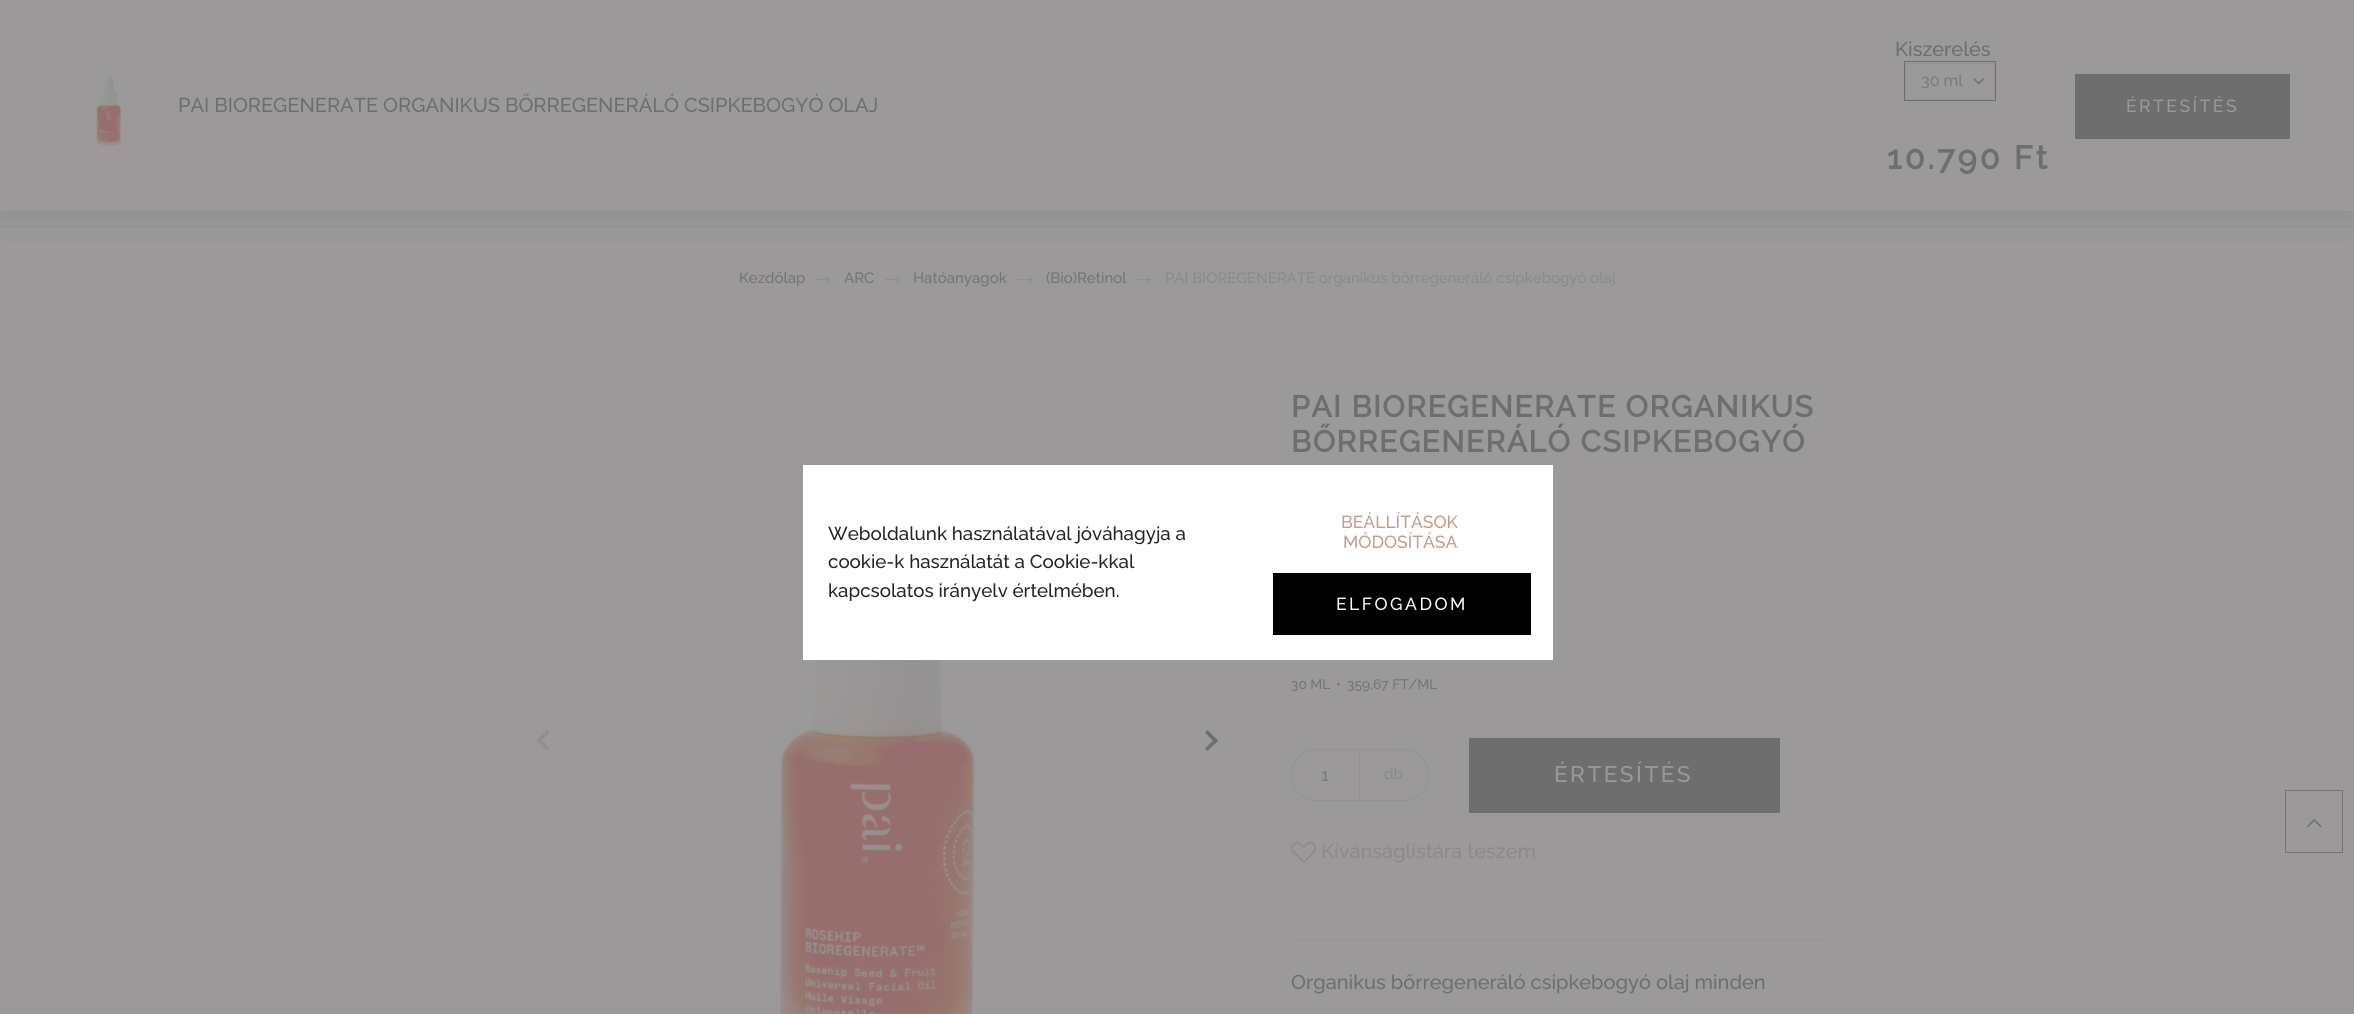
import math
import cairo

surface = cairo.ImageSurface(cairo.FORMAT_RGB24, 2354, 1014)
ctx = cairo.Context(surface)
options = cairo.FontOptions()
options.set_hint_metrics(cairo.HINT_METRICS_OFF)
options.set_hint_style(cairo.HINT_STYLE_NONE)
ctx.set_font_options(options)
ctx.set_miter_limit(4)


def spaced_text(x, y, s, letter, word):
    ctx.move_to(x, y)
    for ch in s:
        ctx.show_text(ch)
        ctx.rel_move_to(letter + word * (ch == ' '), 0)


def round_rect(x, y, w, h, r):
    ctx.new_sub_path()
    for i, (u, v) in enumerate([(x + w - r, y + h - r), (x + r, y + h - r), (x + r, y + r), (x + w - r, y + r)]):
        ctx.arc(u, v, r, i * math.pi / 2, (i + 1) * math.pi / 2)
    ctx.close_path()


def shadow(x, y, w, h, r, blur, alpha):
    ctx.push_group_with_content(cairo.CONTENT_ALPHA)
    ctx.set_operator(cairo.OPERATOR_SOURCE)
    for i in range(15, -16, -2):
        e = blur * i / 6
        if min(w, h) + 2 * e > 0:
            ctx.set_source_rgba(0, 0, 0, alpha * math.erfc((i - 1) / 8.5) / 2)
            round_rect(x - e, y - e, w + 2 * e, h + 2 * e, max(0, min(r + e + blur * .6, min(w, h) / 2 + e)))
            ctx.fill()
    ctx.mask(ctx.pop_group())


def picture(path, x, y, w, h):
    ctx.save()
    ctx.set_source_surface(cairo.ImageSurface.create_from_png(path), x, y)
    ctx.rectangle(x, y, w, h)
    ctx.fill()
    ctx.restore()


ctx.set_source_rgb(0.608, 0.6, 0.6)
ctx.paint()
ctx.set_source_rgb(0.588, 0.58, 0.58)
ctx.rectangle(0, 226, 2354, 1)
ctx.fill()
ctx.set_source_rgb(0.435, 0.431, 0.431)
shadow(0, 0, 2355, 211, 0, 21, 0.35)
ctx.set_source_rgb(0.608, 0.6, 0.6)
ctx.rectangle(0, 0, 2354, 211)
ctx.fill()
picture("img1.png", 96, 76, 25, 70)
ctx.select_font_face("Raleway Thin")
ctx.set_font_size(20)
ctx.set_source_rgb(0.435, 0.431, 0.431)
ctx.move_to(178, 112)
ctx.show_text("PAI BIOREGENERATE ORGANIKUS BŐRREGENERÁLÓ CSIPKEBOGYÓ OLAJ")
ctx.move_to(1895, 56)
ctx.show_text("Kiszerelés")
ctx.rectangle(1904.5, 61.5, 91, 39)
ctx.set_line_width(1)
ctx.stroke()
picture("img2.png", 1973, 78, 12, 7)
ctx.rectangle(1905.5, 63.5, 89, 36)
ctx.set_source_rgb(0.576, 0.569, 0.569)
ctx.stroke()
ctx.set_font_size(16)
ctx.set_source_rgb(0.486, 0.482, 0.486)
ctx.move_to(1921, 86)
ctx.show_text("30 ml")
ctx.select_font_face("Raleway", cairo.FONT_SLANT_NORMAL, cairo.FONT_WEIGHT_BOLD)
ctx.set_font_size(32.5)
ctx.set_source_rgb(0.435, 0.431, 0.431)
spaced_text(1887, 169, "10.790 Ft", 3, 0)
ctx.rectangle(2075, 74, 215, 65)
ctx.fill()
ctx.select_font_face("Raleway Thin")
ctx.set_font_size(17.5)
ctx.set_source_rgb(0.604, 0.6, 0.6)
spaced_text(2126, 112, "ÉRTESÍTÉS", 2.5, 0)
ctx.set_source_rgb(0.565, 0.557, 0.557)
ctx.new_path()
ctx.move_to(536.5, 740.5)
ctx.line_to(547, 730)
ctx.line_to(549.5, 732.5)
ctx.line_to(539, 743.5)
ctx.close_path()
ctx.fill()
ctx.new_path()
ctx.move_to(536.5, 740.5)
ctx.line_to(539, 738)
ctx.line_to(549.5, 748.5)
ctx.line_to(547, 751)
ctx.close_path()
ctx.fill()
picture("img3.png", 779, 506, 197, 508)
ctx.set_source_rgb(0.435, 0.431, 0.431)
ctx.new_path()
ctx.move_to(1205, 732.5)
ctx.line_to(1207.5, 730)
ctx.line_to(1218, 740.5)
ctx.line_to(1215.5, 743.5)
ctx.close_path()
ctx.fill()
ctx.new_path()
ctx.move_to(1205, 748.5)
ctx.line_to(1215.5, 738)
ctx.line_to(1218, 740.5)
ctx.line_to(1207.5, 751)
ctx.close_path()
ctx.fill()
ctx.select_font_face("Raleway", cairo.FONT_SLANT_NORMAL, cairo.FONT_WEIGHT_BOLD)
ctx.set_font_size(30)
spaced_text(1291, 417, "PAI BIOREGENERATE ORGANIKUS", 1.5, 0)
spaced_text(1291, 452, "BŐRREGENERÁLÓ CSIPKEBOGYÓ", 1.5, 0)
ctx.select_font_face("Raleway Thin")
ctx.set_font_size(13.75)
ctx.set_source_rgb(0.459, 0.451, 0.451)
ctx.move_to(1291, 689)
ctx.show_text("30 ML")
ctx.move_to(1336, 689)
ctx.show_text("•")
ctx.move_to(1347, 689)
ctx.show_text("359,67 FT/ML")
round_rect(1291.5, 749.5, 137, 51, 25.5)
ctx.set_source_rgb(0.576, 0.573, 0.573)
ctx.stroke()
ctx.set_source_rgb(0.576, 0.569, 0.569)
ctx.rectangle(1359, 750, 1, 50)
ctx.fill()
ctx.set_font_size(17.5)
ctx.set_source_rgb(0.486, 0.482, 0.486)
ctx.move_to(1321, 781)
ctx.show_text("1")
ctx.set_font_size(15)
ctx.set_source_rgb(0.545, 0.541, 0.541)
ctx.move_to(1384, 779)
ctx.show_text("db")
ctx.set_source_rgb(0.435, 0.431, 0.431)
ctx.rectangle(1469, 738, 311, 75)
ctx.fill()
ctx.set_font_size(22.5)
ctx.set_source_rgb(0.604, 0.6, 0.6)
spaced_text(1554, 782, "ÉRTESÍTÉS", 2.5, 0)
picture("img4.png", 1291, 842, 25, 21)
ctx.set_font_size(20)
ctx.set_source_rgb(0.569, 0.533, 0.525)
ctx.move_to(1321, 858)
ctx.show_text("Kívánságlistára teszem")
ctx.set_source_rgb(0.588, 0.58, 0.58)
ctx.rectangle(1290, 940, 539, 1)
ctx.fill()
ctx.set_source_rgb(0.435, 0.431, 0.431)
ctx.move_to(1291, 989)
ctx.show_text("Organikus bőrregeneráló csipkebogyó olaj minden")
ctx.set_font_size(15)
ctx.set_source_rgb(0.459, 0.451, 0.451)
ctx.move_to(739, 283)
ctx.show_text("Kezdőlap")
picture("img5.png", 815, 275, 15, 9)
ctx.move_to(844, 283)
ctx.show_text("ARC")
picture("img5.png", 885, 275, 15, 9)
ctx.move_to(913, 283)
ctx.show_text("Hatóanyagok")
picture("img6.png", 1018, 275, 15, 9)
ctx.move_to(1046, 283)
ctx.show_text("(Bio)Retinol")
picture("img7.png", 1136, 275, 15, 9)
ctx.set_source_rgb(0.545, 0.541, 0.541)
ctx.move_to(1165, 283)
ctx.show_text("PAI BIOREGENERATE organikus bőrregeneráló csipkebogyó olaj")
ctx.rectangle(2285.5, 790.5, 57, 62)
ctx.set_source_rgb(0.459, 0.451, 0.451)
ctx.stroke()
picture("img8.png", 2306, 818, 16, 10)
ctx.set_source_rgb(1, 1, 1)
ctx.rectangle(803, 465, 750, 195)
ctx.fill()
ctx.set_font_size(18.75)
ctx.set_source_rgb(0.129, 0.145, 0.161)
ctx.move_to(828, 540)
ctx.show_text("Weboldalunk használatával jóváhagyja a")
ctx.move_to(828, 568)
ctx.show_text("cookie-k használatát a Cookie-kkal")
ctx.move_to(828, 597)
ctx.show_text("kapcsolatos irányelv értelmében.")
ctx.set_font_size(17.5)
ctx.set_source_rgb(0.769, 0.608, 0.553)
ctx.move_to(1341, 528)
ctx.show_text("BEÁLLÍTÁSOK")
ctx.move_to(1343, 548)
ctx.show_text("MÓDOSÍTÁSA")
ctx.set_source_rgb(0, 0, 0)
ctx.rectangle(1273, 573, 258, 62)
ctx.fill()
ctx.set_source_rgb(0.992, 0.992, 0.992)
spaced_text(1336, 610, "ELFOGADOM", 2.5, 0)
surface.write_to_png("page.png")
